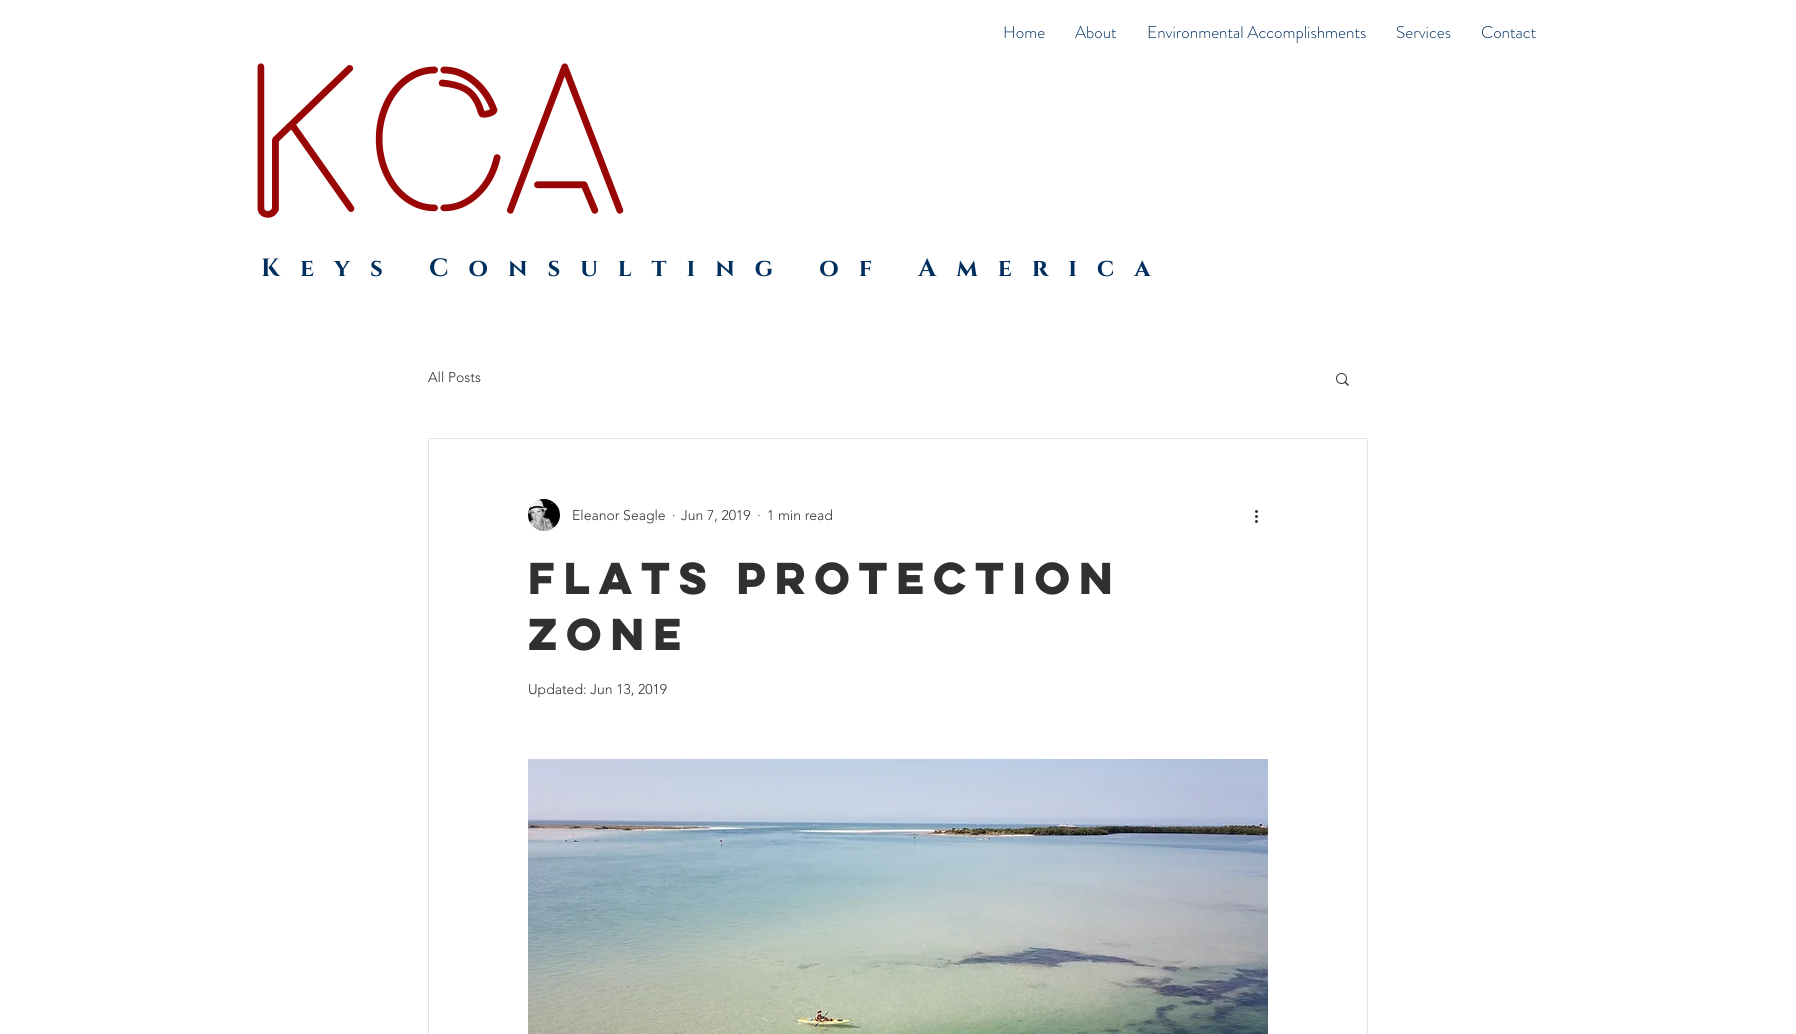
import math
import cairo

surface = cairo.ImageSurface(cairo.FORMAT_RGB24, 1796, 1034)
ctx = cairo.Context(surface)
options = cairo.FontOptions()
options.set_hint_metrics(cairo.HINT_METRICS_OFF)
options.set_hint_style(cairo.HINT_STYLE_NONE)
ctx.set_font_options(options)
ctx.set_miter_limit(4)


def spaced_text(x, y, s, letter, word):
    ctx.move_to(x, y)
    for ch in s:
        ctx.show_text(ch)
        ctx.rel_move_to(letter + word * (ch == ' '), 0)


def picture(path, x, y, w, h):
    ctx.save()
    ctx.set_source_surface(cairo.ImageSurface.create_from_png(path), x, y)
    ctx.rectangle(x, y, w, h)
    ctx.fill()
    ctx.restore()


ctx.set_source_rgb(1, 1, 1)
ctx.paint()
ctx.select_font_face("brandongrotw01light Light")
ctx.set_font_size(17)
ctx.set_source_rgb(0, 0.18, 0.365)
ctx.move_to(1003, 38)
ctx.show_text("Home")
ctx.move_to(1075, 38)
ctx.show_text("About")
ctx.move_to(1147, 38)
ctx.show_text("Environmental Accomplishments")
ctx.move_to(1396, 38)
ctx.show_text("Services")
ctx.move_to(1481, 38)
ctx.show_text("Contact")
ctx.select_font_face("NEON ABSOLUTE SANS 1")
ctx.set_font_size(176)
ctx.set_source_rgb(0.6, 0.024, 0.024)
ctx.move_to(247, 213)
ctx.show_text("KCA")
ctx.select_font_face("Cinzel", cairo.FONT_SLANT_NORMAL, cairo.FONT_WEIGHT_BOLD)
ctx.set_font_size(25)
ctx.set_source_rgb(0, 0.18, 0.365)
spaced_text(261, 276, "Keys Consulting of America", 20, 0)
ctx.select_font_face("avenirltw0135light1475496 Light")
ctx.set_font_size(14)
ctx.set_source_rgb(0.188, 0.188, 0.188)
ctx.move_to(428, 382)
ctx.show_text("All Posts")
picture("img1.png", 1336, 373, 13, 13)
ctx.rectangle(428.5, 438.5, 939, 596)
ctx.set_source_rgb(0.894, 0.894, 0.894)
ctx.set_line_width(1)
ctx.stroke()
picture("img2.png", 528, 499, 32, 32)
ctx.set_source_rgb(0.188, 0.188, 0.188)
ctx.move_to(572, 520)
ctx.show_text("Eleanor Seagle")
ctx.move_to(672, 520)
ctx.show_text("·")
ctx.move_to(681, 520)
ctx.show_text("Jun 7, 2019")
ctx.move_to(757, 520)
ctx.show_text("·")
ctx.move_to(767, 520)
ctx.show_text("1 min read")
picture("img3.png", 1255, 510, 3, 13)
ctx.select_font_face("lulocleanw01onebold", cairo.FONT_SLANT_NORMAL, cairo.FONT_WEIGHT_BOLD)
ctx.set_font_size(40)
ctx.move_to(528, 594)
ctx.show_text("Flats Protection")
ctx.move_to(528, 650)
ctx.show_text("Zone")
ctx.select_font_face("avenirltw0135light1475496 Light")
ctx.set_font_size(14)
ctx.move_to(528, 694)
ctx.show_text("Updated: Jun 13, 2019")
picture("img4.png", 528, 759, 740, 275)
surface.write_to_png("page.png")
